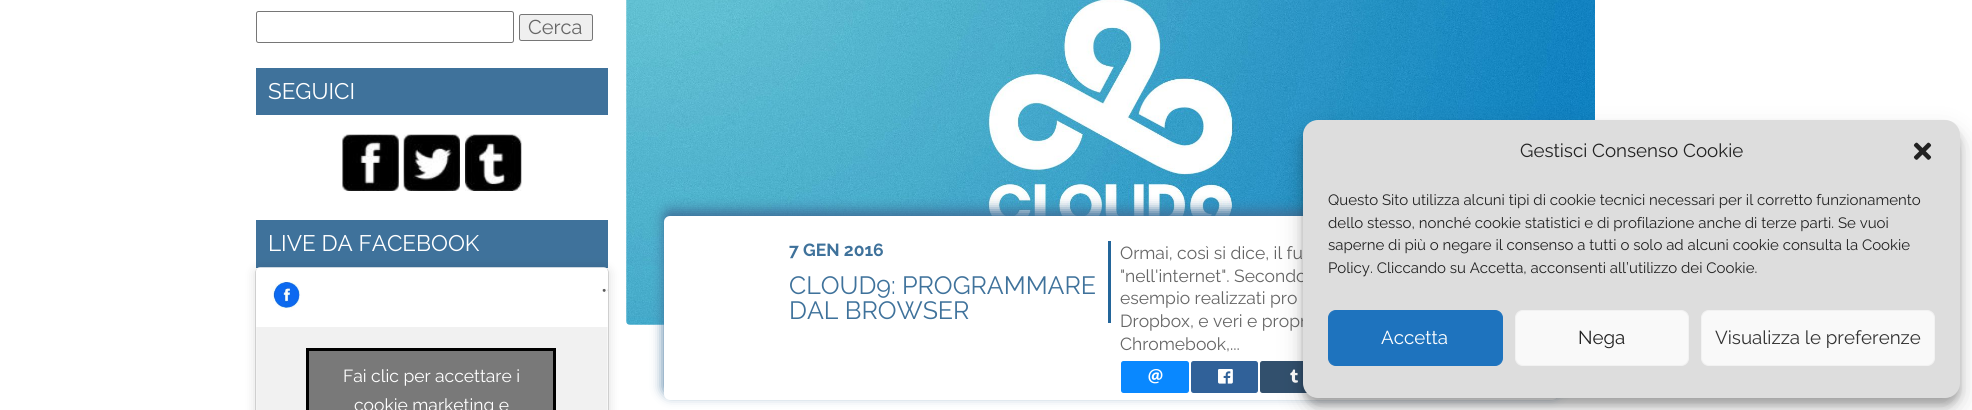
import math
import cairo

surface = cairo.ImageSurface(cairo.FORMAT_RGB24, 1972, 410)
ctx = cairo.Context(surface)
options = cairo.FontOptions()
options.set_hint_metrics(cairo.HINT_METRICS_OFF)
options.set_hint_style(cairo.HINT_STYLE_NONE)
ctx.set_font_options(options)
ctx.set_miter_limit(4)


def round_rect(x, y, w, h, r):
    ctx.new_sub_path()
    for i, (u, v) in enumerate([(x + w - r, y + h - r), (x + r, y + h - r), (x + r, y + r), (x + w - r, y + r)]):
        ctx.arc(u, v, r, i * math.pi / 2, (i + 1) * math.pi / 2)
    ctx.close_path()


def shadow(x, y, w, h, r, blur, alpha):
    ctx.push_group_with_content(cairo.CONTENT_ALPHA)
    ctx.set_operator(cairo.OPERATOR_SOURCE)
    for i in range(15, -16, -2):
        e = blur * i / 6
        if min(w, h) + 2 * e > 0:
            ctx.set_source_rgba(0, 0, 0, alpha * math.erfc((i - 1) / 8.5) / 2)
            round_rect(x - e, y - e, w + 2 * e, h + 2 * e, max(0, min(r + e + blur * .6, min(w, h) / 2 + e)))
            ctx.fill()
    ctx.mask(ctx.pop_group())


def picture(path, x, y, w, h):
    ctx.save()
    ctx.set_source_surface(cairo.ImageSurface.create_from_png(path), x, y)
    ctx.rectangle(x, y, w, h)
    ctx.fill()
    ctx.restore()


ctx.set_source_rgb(1, 1, 1)
ctx.paint()
round_rect(256.5, 11.5, 257, 31, 2)
ctx.set_source_rgb(0.463, 0.463, 0.463)
ctx.set_line_width(1)
ctx.stroke()
ctx.set_source_rgb(0.937, 0.937, 0.937)
round_rect(519.5, 14.5, 73, 26, 2)
ctx.fill_preserve()
ctx.set_source_rgb(0.463, 0.463, 0.463)
ctx.stroke()
ctx.select_font_face("Raleway")
ctx.set_font_size(20)
ctx.set_source_rgb(0.4, 0.4, 0.4)
ctx.move_to(528, 34)
ctx.show_text("Cerca")
ctx.set_source_rgb(0.247, 0.447, 0.608)
ctx.rectangle(256, 68, 352, 47)
ctx.fill()
ctx.set_font_size(22.5)
ctx.set_source_rgb(1, 1, 1)
ctx.move_to(268, 99)
ctx.show_text("SEGUICI")
picture("img1.png", 342, 134, 57, 57)
picture("img2.png", 403, 134, 57, 57)
picture("img3.png", 465, 134, 57, 57)
ctx.set_source_rgb(0.247, 0.447, 0.608)
ctx.rectangle(256, 220, 352, 48)
ctx.fill()
ctx.set_source_rgb(1, 1, 1)
ctx.move_to(268, 251)
ctx.show_text("LIVE DA FACEBOOK")
ctx.set_source_rgb(0, 0, 0)
shadow(256, 269, 352, 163, 4, 6, 0.15)
shadow(256, 268, 352, 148, 4, 0.5, 0.5)
ctx.set_source_rgb(1, 1, 1)
round_rect(256, 268, 352, 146, 4)
ctx.fill()
picture("img4.png", 256, 267, 352, 143)
ctx.set_source_rgb(0.475, 0.475, 0.475)
ctx.rectangle(307.5, 349.5, 247, 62)
ctx.fill_preserve()
ctx.set_source_rgb(0, 0, 0)
ctx.set_line_width(3)
ctx.stroke()
ctx.set_font_size(17.5)
ctx.set_source_rgb(1, 1, 1)
ctx.move_to(343, 382)
ctx.show_text("Fai clic per accettare i")
ctx.move_to(354, 411)
ctx.show_text("cookie marketing e")
picture("img5.png", 626, 0, 969, 325)
ctx.set_source_rgb(0.247, 0.447, 0.608)
shadow(664, 210, 894, 184, 6, 6, 1)
ctx.set_source_rgb(1, 1, 1)
round_rect(664, 216, 894, 184, 6)
ctx.fill()
ctx.set_source_rgb(0.137, 0.396, 0.604)
ctx.rectangle(1108, 241, 3, 82)
ctx.fill()
ctx.select_font_face("Raleway", cairo.FONT_SLANT_NORMAL, cairo.FONT_WEIGHT_BOLD)
ctx.set_source_rgb(0.247, 0.447, 0.608)
ctx.move_to(789, 256)
ctx.show_text("7 GEN 2016")
ctx.select_font_face("Raleway")
ctx.set_font_size(25)
ctx.move_to(789, 294)
ctx.show_text("CLOUD9: PROGRAMMARE")
ctx.move_to(789, 319)
ctx.show_text("DAL BROWSER")
ctx.set_font_size(17.5)
ctx.set_source_rgb(0.4, 0.4, 0.4)
ctx.move_to(1120, 259)
ctx.show_text("Ormai, così si dice, il fu")
ctx.move_to(1120, 282)
ctx.show_text("\"nell'internet\". Secondo")
ctx.move_to(1120, 304)
ctx.show_text("esempio realizzati pro")
ctx.move_to(1120, 327)
ctx.show_text("Dropbox, e veri e propr")
ctx.move_to(1120, 350)
ctx.show_text("Chromebook,...")
ctx.set_source_rgb(0.039, 0.533, 1)
round_rect(1121, 361, 68, 32, 2.5)
ctx.fill()
picture("img6.png", 1148, 369, 15, 15)
ctx.set_source_rgb(0.188, 0.38, 0.6)
round_rect(1191, 361, 67, 32, 2.5)
ctx.fill()
picture("img7.png", 1218, 369, 15, 15)
ctx.set_source_rgb(0.196, 0.314, 0.427)
round_rect(1260, 361, 66, 32, 2.5)
ctx.fill()
picture("img8.png", 1290, 369, 8, 14)
ctx.set_source_rgb(0, 0, 0)
shadow(1303, 128, 657, 277, 15, 4, 0.23)
shadow(1303, 133, 657, 277, 15, 12.5, 0.19)
ctx.set_source_rgb(0.867, 0.867, 0.867)
round_rect(1303, 120, 657, 278, 15)
ctx.fill()
ctx.set_font_size(18.75)
ctx.set_source_rgb(0.133, 0.133, 0.133)
ctx.move_to(1520, 157)
ctx.show_text("Gestisci Consenso Cookie")
picture("img9.png", 1913, 142, 19, 18)
ctx.set_font_size(15)
ctx.move_to(1328, 205)
ctx.show_text("Questo Sito utilizza alcuni tipi di cookie tecnici necessari per il corretto funzionamento")
ctx.move_to(1328, 228)
ctx.show_text("dello stesso, nonché cookie statistici e di profilazione anche di terze parti. Se vuoi")
ctx.move_to(1328, 250)
ctx.show_text("saperne di più o negare il consenso a tutti o solo ad alcuni cookie consulta la Cookie")
ctx.move_to(1328, 273)
ctx.show_text("Policy. Cliccando su Accetta, acconsenti all’utilizzo dei Cookie.")
ctx.set_source_rgb(0.118, 0.451, 0.745)
round_rect(1328.5, 310.5, 174, 55, 7.5)
ctx.fill_preserve()
ctx.set_line_width(1)
ctx.stroke()
ctx.set_font_size(18.75)
ctx.set_source_rgb(1, 1, 1)
ctx.move_to(1381, 344)
ctx.show_text("Accetta")
ctx.set_source_rgb(0.976, 0.976, 0.976)
round_rect(1515.5, 310.5, 173, 55, 7.5)
ctx.fill_preserve()
ctx.set_source_rgb(0.949, 0.949, 0.949)
ctx.stroke()
ctx.set_source_rgb(0.133, 0.133, 0.133)
ctx.move_to(1578, 344)
ctx.show_text("Nega")
ctx.set_source_rgb(0.976, 0.976, 0.976)
round_rect(1701.5, 310.5, 233, 55, 7.5)
ctx.fill_preserve()
ctx.set_source_rgb(0.949, 0.949, 0.949)
ctx.stroke()
ctx.set_source_rgb(0.2, 0.2, 0.2)
ctx.move_to(1715, 344)
ctx.show_text("Visualizza le preferenze")
surface.write_to_png("page.png")
